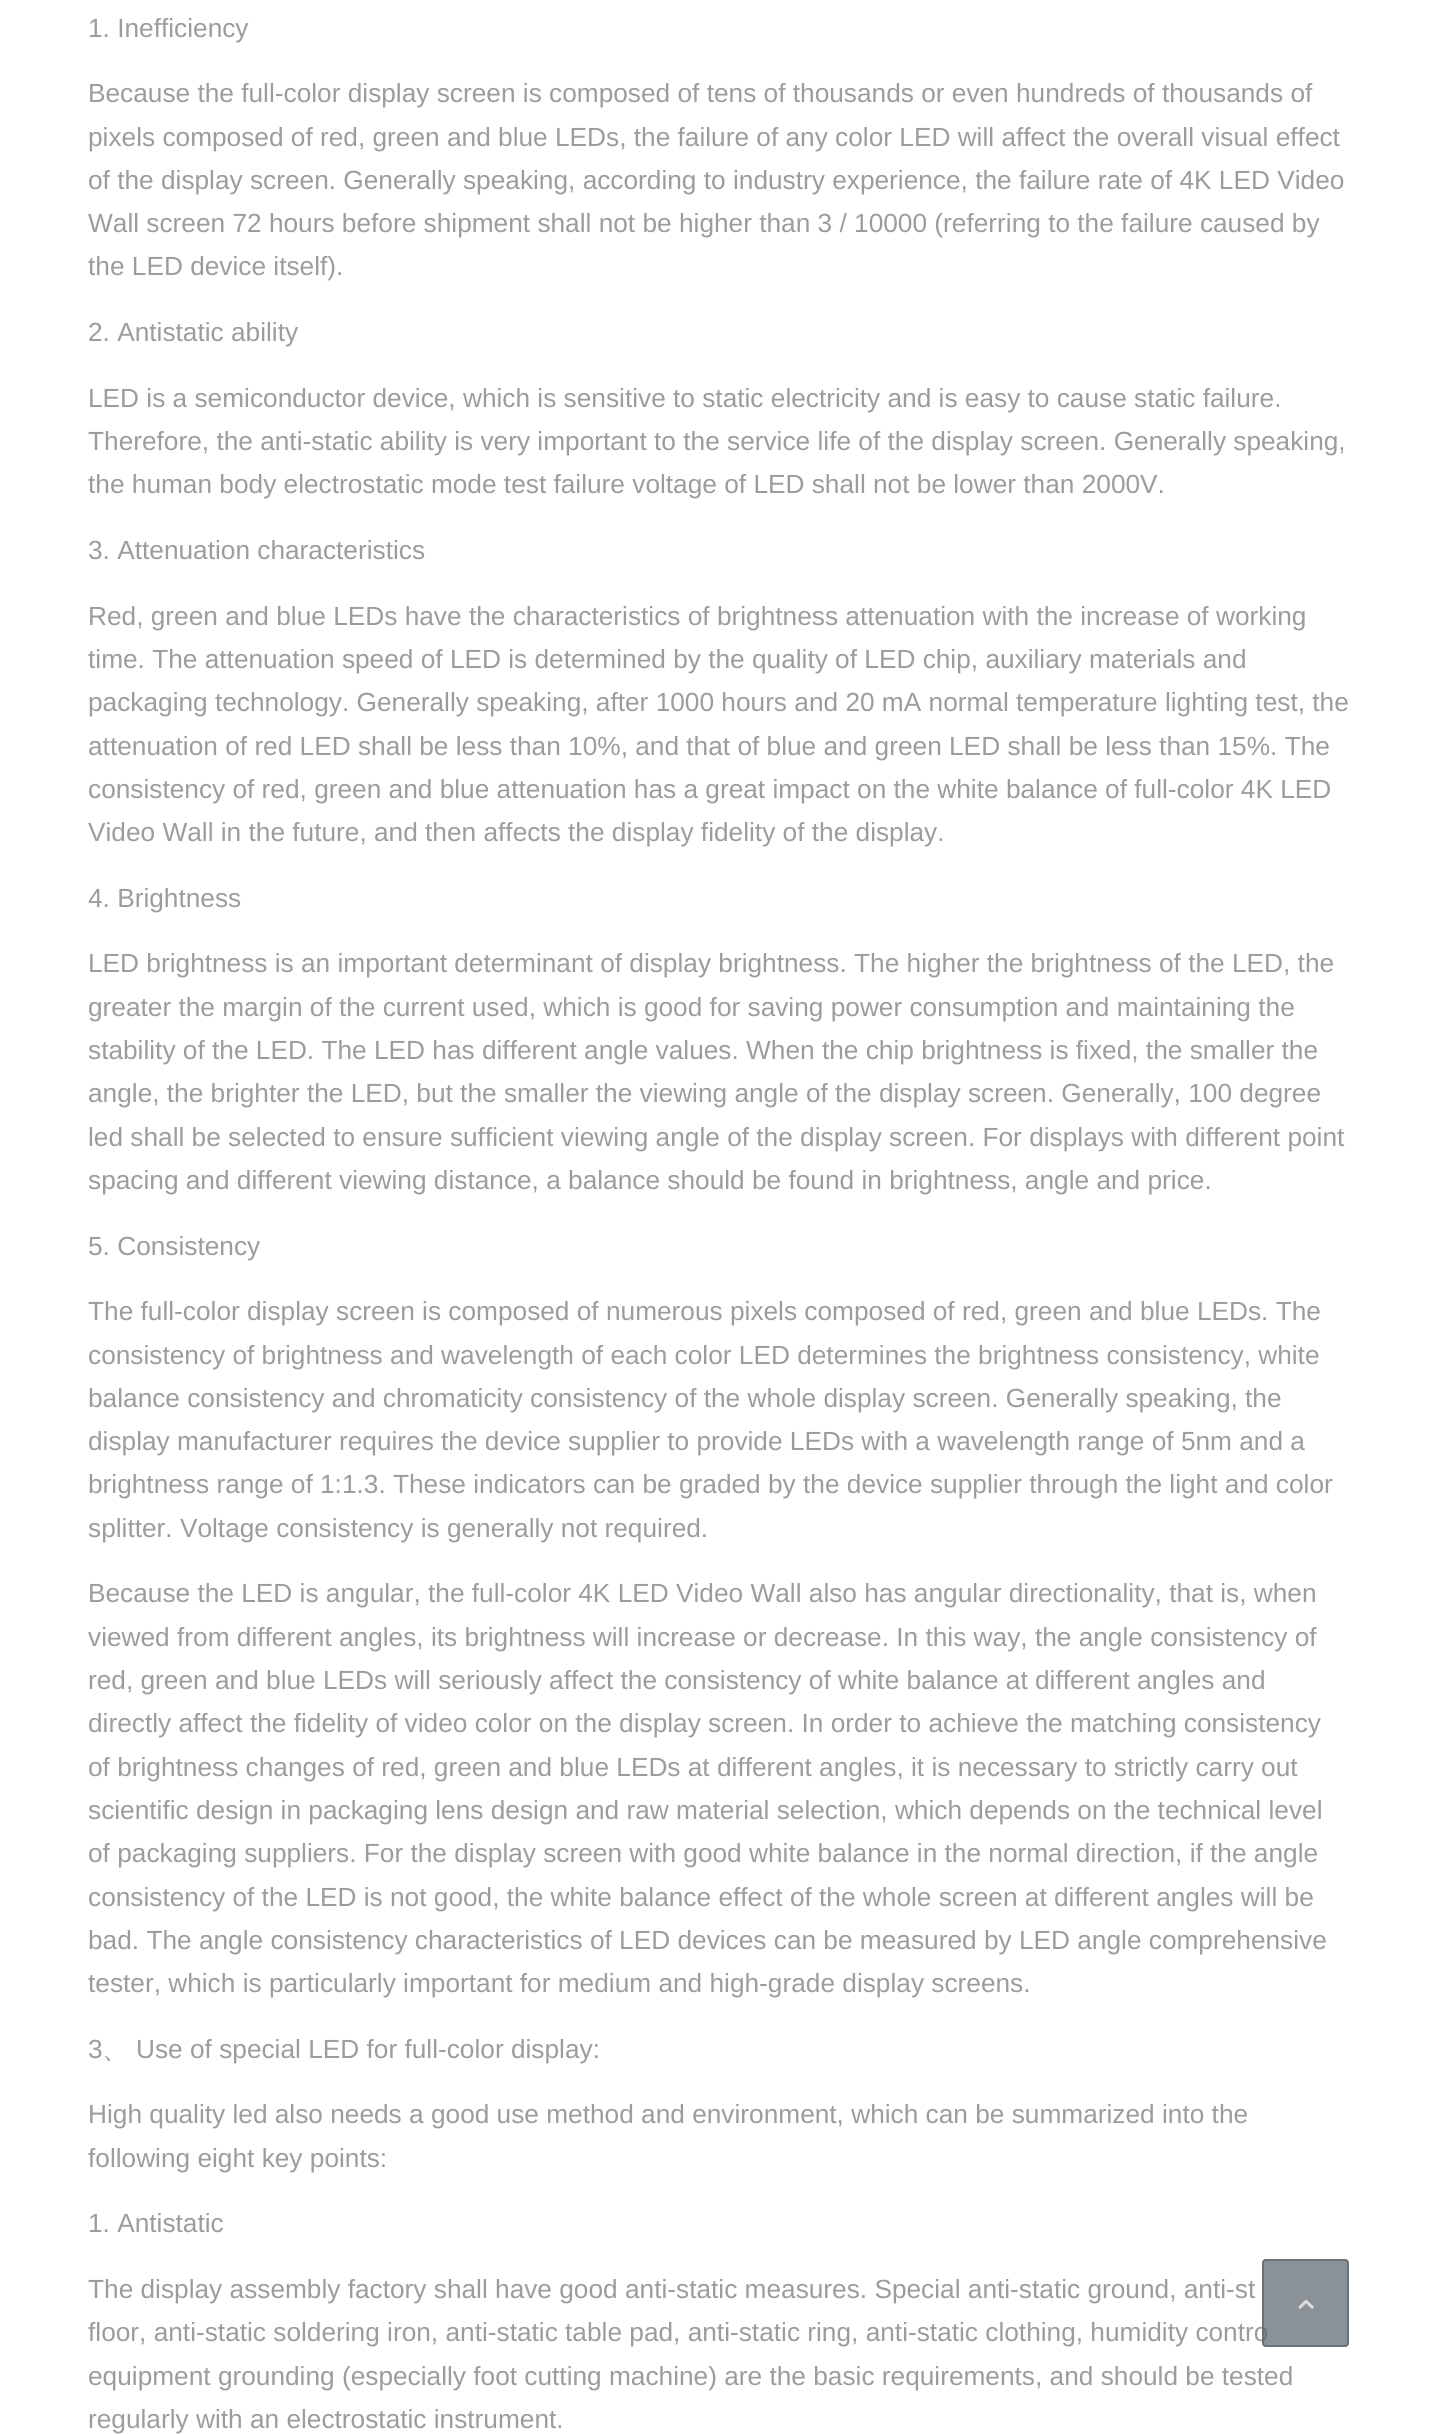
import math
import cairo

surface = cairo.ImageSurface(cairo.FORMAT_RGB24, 1436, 2434)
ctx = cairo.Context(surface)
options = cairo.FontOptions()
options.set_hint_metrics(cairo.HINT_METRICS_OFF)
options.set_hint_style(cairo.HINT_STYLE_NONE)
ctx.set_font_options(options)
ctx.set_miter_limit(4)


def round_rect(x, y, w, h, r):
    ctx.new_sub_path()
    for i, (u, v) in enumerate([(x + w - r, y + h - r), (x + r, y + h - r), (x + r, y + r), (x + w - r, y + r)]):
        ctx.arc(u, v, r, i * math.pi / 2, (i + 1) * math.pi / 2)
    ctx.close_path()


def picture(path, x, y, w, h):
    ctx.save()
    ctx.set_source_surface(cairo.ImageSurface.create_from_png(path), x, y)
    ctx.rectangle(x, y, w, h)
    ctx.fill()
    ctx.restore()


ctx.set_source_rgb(1, 1, 1)
ctx.paint()
ctx.select_font_face("Liberation Sans")
ctx.set_font_size(26.25)
ctx.set_source_rgb(0.612, 0.612, 0.612)
ctx.move_to(88, 37)
ctx.show_text("1. Inefficiency")
ctx.move_to(88, 102)
ctx.show_text("Because the full-color display screen is composed of tens of thousands or even hundreds of thousands of")
ctx.move_to(88, 146)
ctx.show_text("pixels composed of red, green and blue LEDs, the failure of any color LED will affect the overall visual effect")
ctx.move_to(88, 189)
ctx.show_text("of the display screen. Generally speaking, according to industry experience, the failure rate of 4K LED Video")
ctx.move_to(88, 232)
ctx.show_text("Wall screen 72 hours before shipment shall not be higher than 3 / 10000 (referring to the failure caused by")
ctx.move_to(88, 275)
ctx.show_text("the LED device itself).")
ctx.move_to(88, 341)
ctx.show_text("2. Antistatic ability")
ctx.move_to(88, 407)
ctx.show_text("LED is a semiconductor device, which is sensitive to static electricity and is easy to cause static failure.")
ctx.move_to(88, 450)
ctx.show_text("Therefore, the anti-static ability is very important to the service life of the display screen. Generally speaking,")
ctx.move_to(88, 493)
ctx.show_text("the human body electrostatic mode test failure voltage of LED shall not be lower than 2000V.")
ctx.move_to(88, 559)
ctx.show_text("3. Attenuation characteristics")
ctx.move_to(88, 625)
ctx.show_text("Red, green and blue LEDs have the characteristics of brightness attenuation with the increase of working")
ctx.move_to(88, 668)
ctx.show_text("time. The attenuation speed of LED is determined by the quality of LED chip, auxiliary materials and")
ctx.move_to(88, 711)
ctx.show_text("packaging technology. Generally speaking, after 1000 hours and 20 mA normal temperature lighting test, the")
ctx.move_to(88, 755)
ctx.show_text("attenuation of red LED shall be less than 10%, and that of blue and green LED shall be less than 15%. The")
ctx.move_to(88, 798)
ctx.show_text("consistency of red, green and blue attenuation has a great impact on the white balance of full-color 4K LED")
ctx.move_to(88, 841)
ctx.show_text("Video Wall in the future, and then affects the display fidelity of the display.")
ctx.move_to(88, 907)
ctx.show_text("4. Brightness")
ctx.move_to(88, 972)
ctx.show_text("LED brightness is an important determinant of display brightness. The higher the brightness of the LED, the")
ctx.move_to(88, 1016)
ctx.show_text("greater the margin of the current used, which is good for saving power consumption and maintaining the")
ctx.move_to(88, 1059)
ctx.show_text("stability of the LED. The LED has different angle values. When the chip brightness is fixed, the smaller the")
ctx.move_to(88, 1102)
ctx.show_text("angle, the brighter the LED, but the smaller the viewing angle of the display screen. Generally, 100 degree")
ctx.move_to(88, 1146)
ctx.show_text("led shall be selected to ensure sufficient viewing angle of the display screen. For displays with different point")
ctx.move_to(88, 1189)
ctx.show_text("spacing and different viewing distance, a balance should be found in brightness, angle and price.")
ctx.move_to(88, 1255)
ctx.show_text("5. Consistency")
ctx.move_to(88, 1320)
ctx.show_text("The full-color display screen is composed of numerous pixels composed of red, green and blue LEDs. The")
ctx.move_to(88, 1364)
ctx.show_text("consistency of brightness and wavelength of each color LED determines the brightness consistency, white")
ctx.move_to(88, 1407)
ctx.show_text("balance consistency and chromaticity consistency of the whole display screen. Generally speaking, the")
ctx.move_to(88, 1450)
ctx.show_text("display manufacturer requires the device supplier to provide LEDs with a wavelength range of 5nm and a")
ctx.move_to(88, 1493)
ctx.show_text("brightness range of 1:1.3. These indicators can be graded by the device supplier through the light and color")
ctx.move_to(88, 1537)
ctx.show_text("splitter. Voltage consistency is generally not required.")
ctx.move_to(88, 1602)
ctx.show_text("Because the LED is angular, the full-color 4K LED Video Wall also has angular directionality, that is, when")
ctx.move_to(88, 1646)
ctx.show_text("viewed from different angles, its brightness will increase or decrease. In this way, the angle consistency of")
ctx.move_to(88, 1689)
ctx.show_text("red, green and blue LEDs will seriously affect the consistency of white balance at different angles and")
ctx.move_to(88, 1732)
ctx.show_text("directly affect the fidelity of video color on the display screen. In order to achieve the matching consistency")
ctx.move_to(88, 1776)
ctx.show_text("of brightness changes of red, green and blue LEDs at different angles, it is necessary to strictly carry out")
ctx.move_to(88, 1819)
ctx.show_text("scientific design in packaging lens design and raw material selection, which depends on the technical level")
ctx.move_to(88, 1862)
ctx.show_text("of packaging suppliers. For the display screen with good white balance in the normal direction, if the angle")
ctx.move_to(88, 1906)
ctx.show_text("consistency of the LED is not good, the white balance effect of the whole screen at different angles will be")
ctx.move_to(88, 1949)
ctx.show_text("bad. The angle consistency characteristics of LED devices can be measured by LED angle comprehensive")
ctx.move_to(88, 1992)
ctx.show_text("tester, which is particularly important for medium and high-grade display screens.")
ctx.move_to(88, 2058)
ctx.show_text("3")
ctx.select_font_face("WenQuanYi Zen Hei Medium")
ctx.move_to(102, 2058)
ctx.show_text("、")
ctx.select_font_face("Liberation Sans")
ctx.move_to(136, 2058)
ctx.show_text("Use of special LED for full-color display:")
ctx.move_to(88, 2123)
ctx.show_text("High quality led also needs a good use method and environment, which can be summarized into the")
ctx.move_to(88, 2167)
ctx.show_text("following eight key points:")
ctx.move_to(88, 2232)
ctx.show_text("1. Antistatic")
ctx.move_to(88, 2298)
ctx.show_text("The display assembly factory shall have good anti-static measures. Special anti-static ground, anti-st")
ctx.move_to(88, 2341)
ctx.show_text("floor, anti-static soldering iron, anti-static table pad, anti-static ring, anti-static clothing, humidity contro")
ctx.move_to(88, 2385)
ctx.show_text("equipment grounding (especially foot cutting machine) are the basic requirements, and should be tested")
ctx.move_to(88, 2428)
ctx.show_text("regularly with an electrostatic instrument.")
ctx.set_source_rgba(0.357, 0.392, 0.42, 0.7)
round_rect(1262, 2259, 87, 88, 4)
ctx.fill()
round_rect(1263, 2260, 85, 86, 3)
ctx.stroke()
picture("img1.png", 1298, 2299, 16, 10)
surface.write_to_png("page.png")
